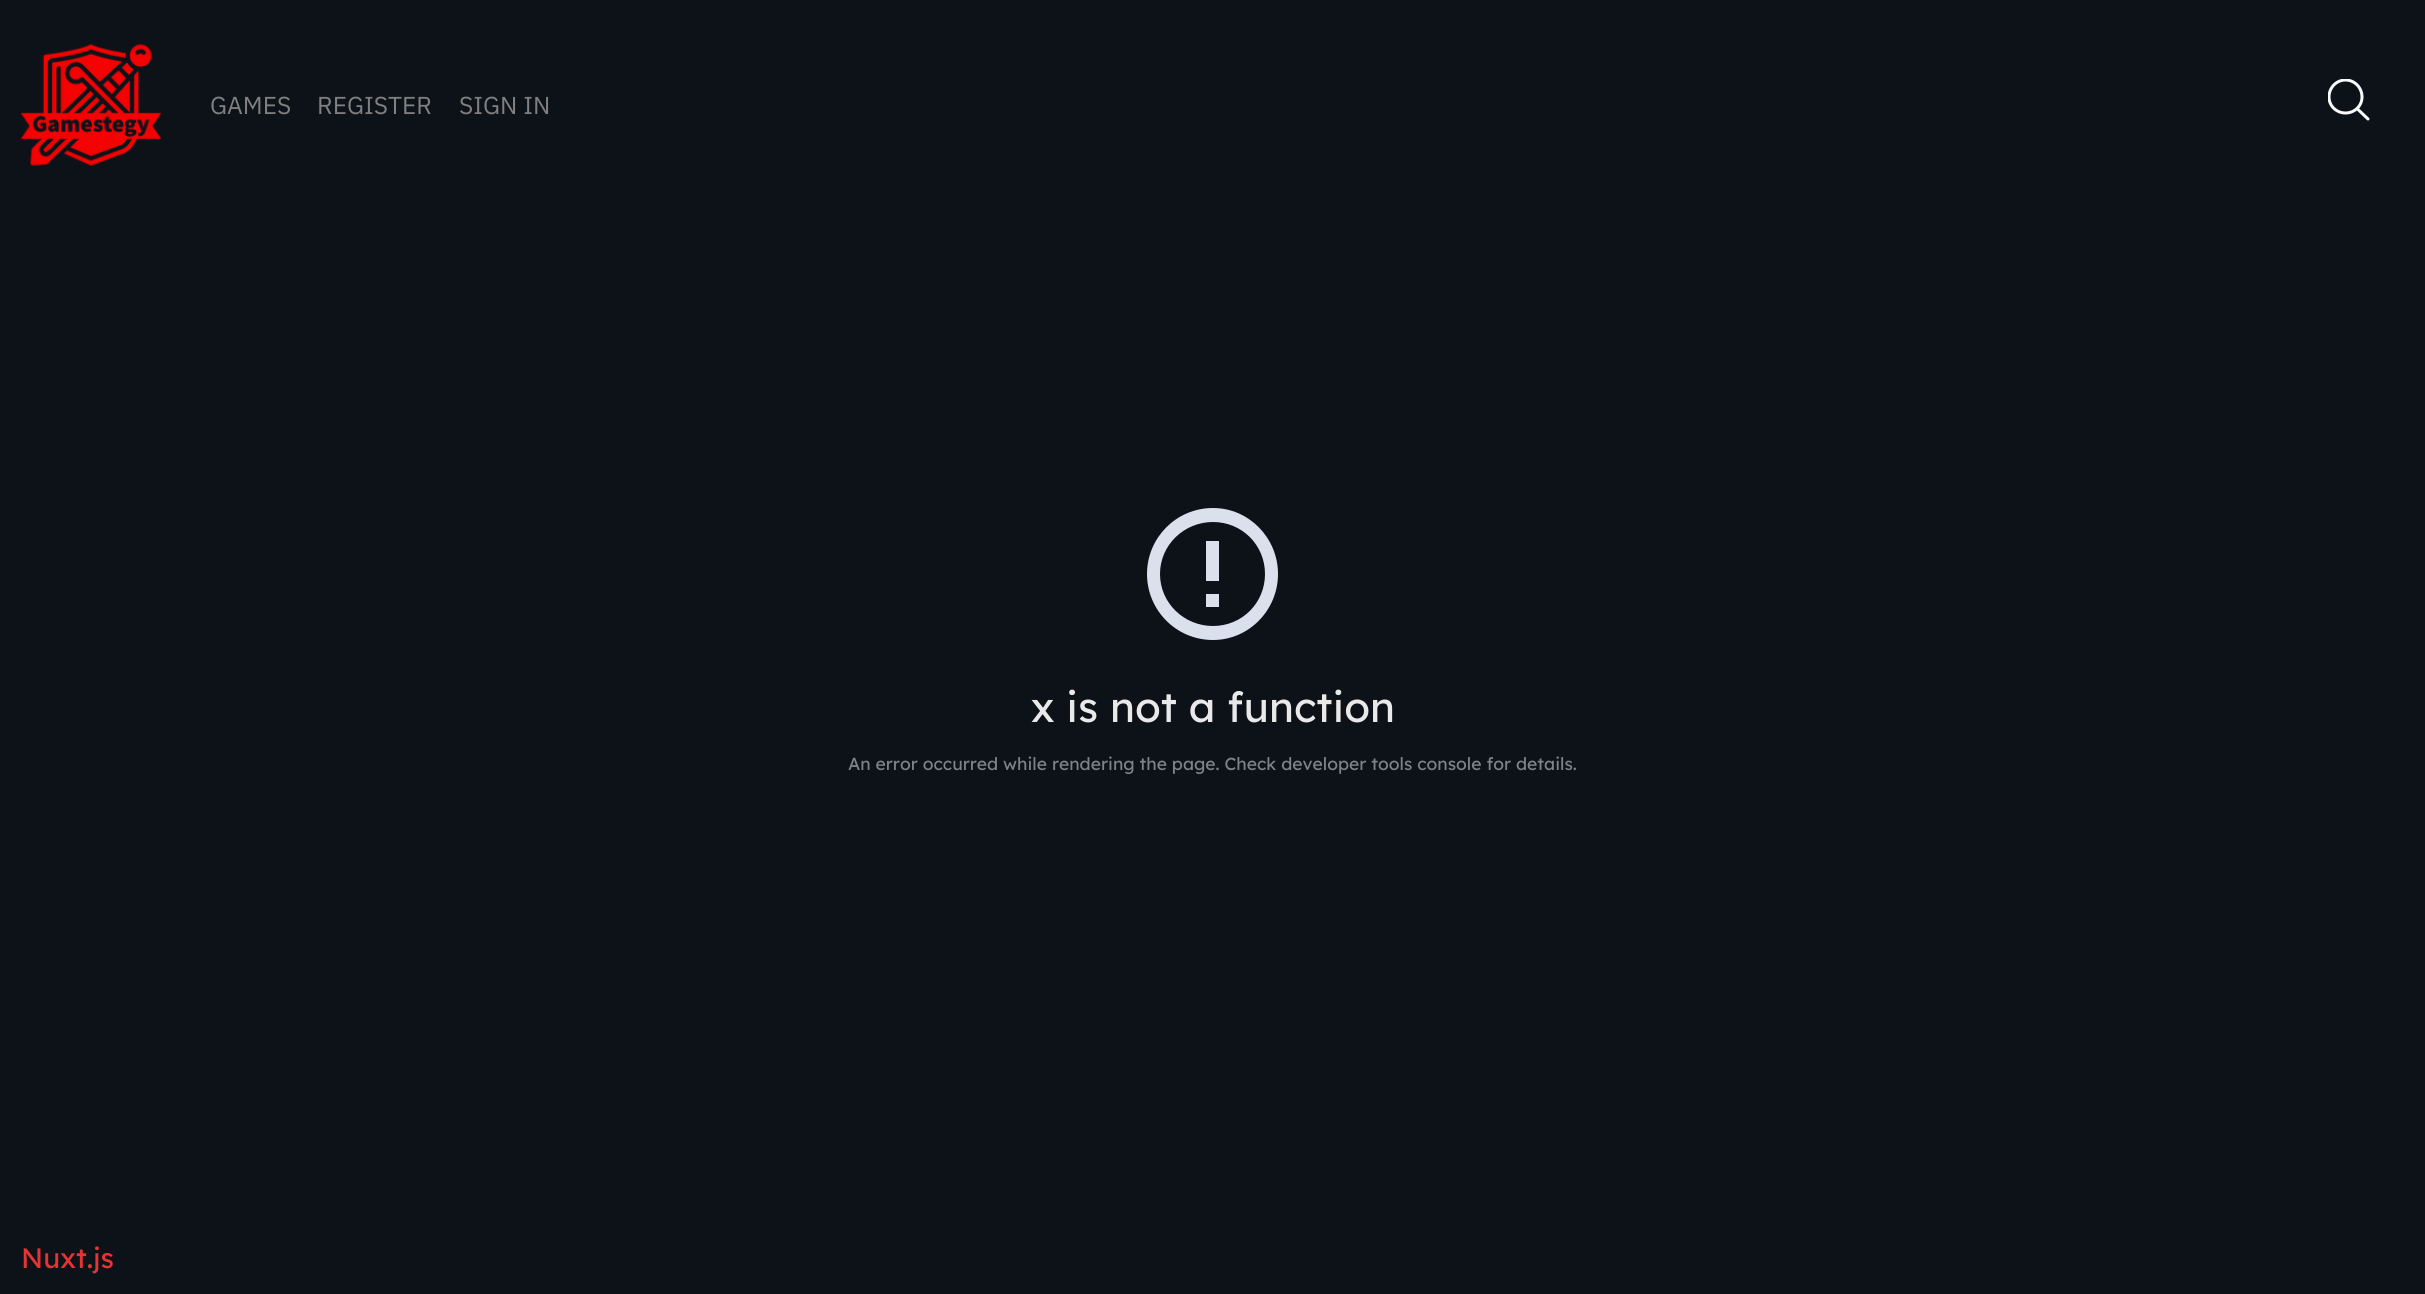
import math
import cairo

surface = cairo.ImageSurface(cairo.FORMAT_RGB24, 2425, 1294)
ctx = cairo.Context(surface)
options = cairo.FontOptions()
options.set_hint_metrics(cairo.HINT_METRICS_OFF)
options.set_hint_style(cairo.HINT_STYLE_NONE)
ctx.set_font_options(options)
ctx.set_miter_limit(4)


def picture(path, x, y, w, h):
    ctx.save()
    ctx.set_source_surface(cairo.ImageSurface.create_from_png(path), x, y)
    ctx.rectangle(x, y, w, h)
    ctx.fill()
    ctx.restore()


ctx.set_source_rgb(0.051, 0.071, 0.098)
ctx.paint()
picture("img1.png", 20, 44, 142, 122)
ctx.select_font_face("IBM Plex Sans")
ctx.set_font_size(24.5)
ctx.set_source_rgb(0.502, 0.502, 0.502)
ctx.move_to(210, 114)
ctx.show_text("GAMES")
ctx.move_to(317, 114)
ctx.show_text("REGISTER")
ctx.move_to(459, 114)
ctx.show_text("SIGN IN")
ctx.save()
ctx.rectangle(2328, 79, 42, 42)
ctx.clip()
ctx.new_path()
ctx.move_to(2345.5, 113)
ctx.curve_to(2354.5, 113, 2362, 106, 2362, 97)
ctx.curve_to(2362, 87.5, 2354.5, 80, 2345.5, 80)
ctx.curve_to(2336.5, 80, 2329, 87.5, 2329, 97)
ctx.curve_to(2329, 106, 2336.5, 113, 2345.5, 113)
ctx.move_to(2368, 119)
ctx.line_to(2357.5, 109)
ctx.set_source_rgb(0.976, 0.98, 0.98)
ctx.set_line_width(3)
ctx.set_line_cap(cairo.LINE_CAP_ROUND)
ctx.set_line_join(cairo.LINE_JOIN_ROUND)
ctx.stroke()
ctx.restore()
ctx.set_source_rgb(0.859, 0.882, 0.925)
ctx.new_path()
ctx.move_to(1206, 594)
ctx.line_to(1219, 594)
ctx.line_to(1219, 607)
ctx.line_to(1206, 607)
ctx.close_path()
ctx.move_to(1206, 541)
ctx.line_to(1219, 541)
ctx.line_to(1219, 581)
ctx.line_to(1206, 581)
ctx.close_path()
ctx.move_to(1213, 508)
ctx.curve_to(1176, 508, 1147, 538, 1147, 574)
ctx.curve_to(1147, 610, 1176, 640, 1213, 640)
ctx.curve_to(1249, 640, 1278, 610, 1278, 574)
ctx.curve_to(1278, 538, 1249, 508, 1213, 508)
ctx.close_path()
ctx.move_to(1213, 626)
ctx.curve_to(1184, 626, 1160, 603, 1160, 574)
ctx.curve_to(1160, 545, 1184, 522, 1213, 522)
ctx.curve_to(1242, 522, 1265, 545, 1265, 574)
ctx.curve_to(1265, 603, 1242, 626, 1213, 626)
ctx.close_path()
ctx.fill()
ctx.select_font_face("Lexend")
ctx.set_font_size(42)
ctx.set_source_rgb(0.914, 0.914, 0.914)
ctx.move_to(1031, 722)
ctx.show_text("x is not a function")
ctx.set_font_size(17.5)
ctx.set_source_rgb(0.498, 0.51, 0.545)
ctx.move_to(848, 770)
ctx.show_text("An error occurred while rendering the page. Check developer tools console for details.")
ctx.set_font_size(28)
ctx.set_source_rgb(0.906, 0.2, 0.2)
ctx.move_to(21, 1268)
ctx.show_text("Nuxt.js")
surface.write_to_png("page.png")
